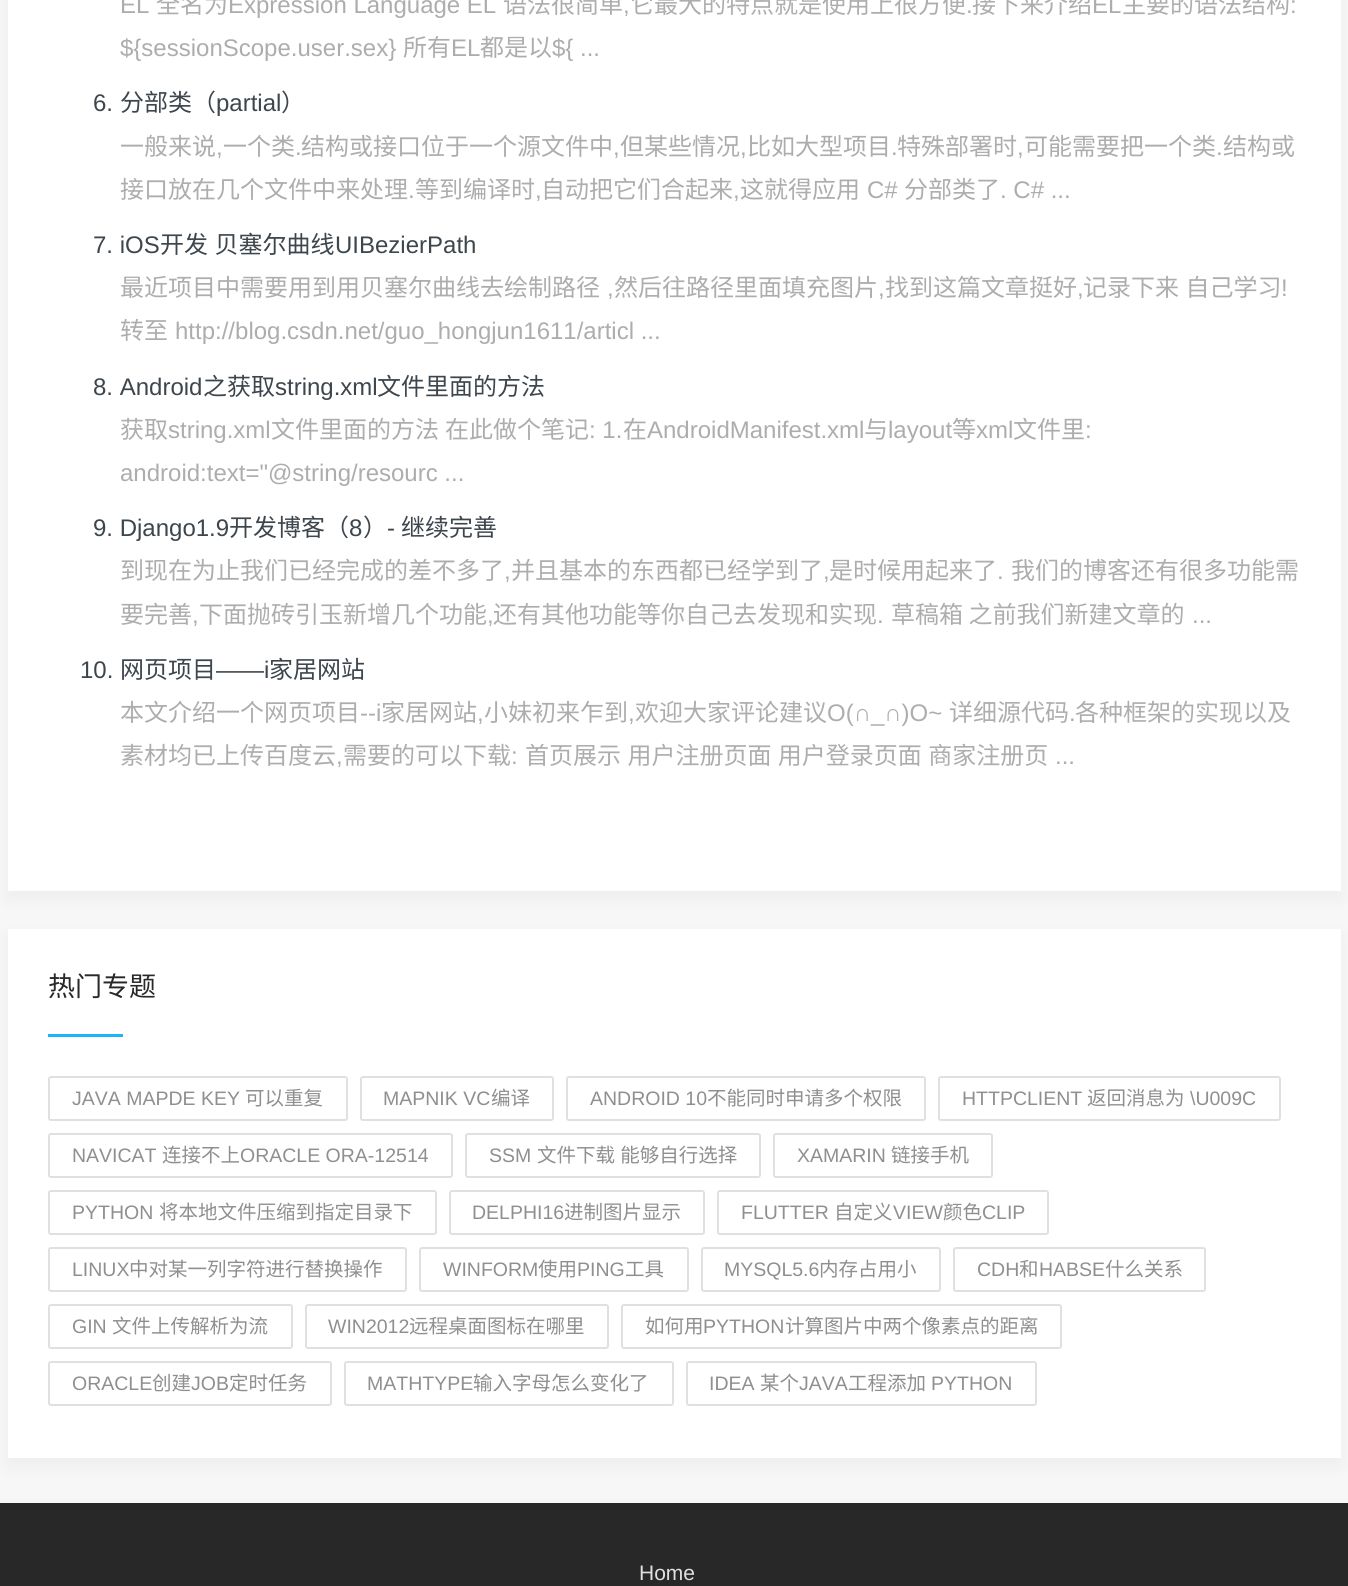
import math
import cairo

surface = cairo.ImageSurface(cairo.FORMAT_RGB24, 1348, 1586)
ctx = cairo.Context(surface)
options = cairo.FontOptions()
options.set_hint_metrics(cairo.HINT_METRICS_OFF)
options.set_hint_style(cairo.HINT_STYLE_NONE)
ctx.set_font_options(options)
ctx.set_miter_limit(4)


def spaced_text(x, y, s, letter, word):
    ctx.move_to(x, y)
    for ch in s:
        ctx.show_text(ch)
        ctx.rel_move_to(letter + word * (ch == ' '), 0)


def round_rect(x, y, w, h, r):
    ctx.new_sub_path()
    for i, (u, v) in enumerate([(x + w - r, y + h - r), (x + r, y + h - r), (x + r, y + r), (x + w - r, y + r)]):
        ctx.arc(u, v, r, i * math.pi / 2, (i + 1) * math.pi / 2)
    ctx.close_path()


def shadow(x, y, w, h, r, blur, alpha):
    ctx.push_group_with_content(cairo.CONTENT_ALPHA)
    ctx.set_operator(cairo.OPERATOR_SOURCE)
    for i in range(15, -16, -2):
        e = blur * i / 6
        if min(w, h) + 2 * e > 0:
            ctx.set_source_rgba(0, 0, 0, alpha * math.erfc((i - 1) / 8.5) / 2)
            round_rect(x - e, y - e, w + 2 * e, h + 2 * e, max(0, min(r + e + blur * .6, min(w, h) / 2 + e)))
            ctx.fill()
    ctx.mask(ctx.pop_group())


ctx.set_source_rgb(0.965, 0.965, 0.965)
ctx.paint()
ctx.set_source_rgb(0.573, 0.573, 0.573)
shadow(8, -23, 1333, 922, 0, 7.5, 0.1)
ctx.set_source_rgb(1, 1, 1)
ctx.rectangle(8, 0, 1333, 891)
ctx.fill()
ctx.select_font_face("Liberation Sans")
ctx.set_font_size(24)
ctx.set_source_rgb(0.678, 0.678, 0.678)
ctx.move_to(120, 13)
ctx.show_text("EL")
ctx.select_font_face("Noto Sans CJK SC")
ctx.move_to(156, 13)
ctx.show_text("全名为")
ctx.select_font_face("Liberation Sans")
ctx.move_to(228, 13)
ctx.show_text("Expression Language EL")
ctx.select_font_face("Noto Sans CJK SC")
ctx.move_to(503, 13)
ctx.show_text("语法很简单")
ctx.select_font_face("Liberation Sans")
ctx.move_to(623, 13)
ctx.show_text(",")
ctx.select_font_face("Noto Sans CJK SC")
ctx.move_to(630, 13)
ctx.show_text("它最大的特点就是使用上很方便")
ctx.select_font_face("Liberation Sans")
ctx.move_to(966, 13)
ctx.show_text(".")
ctx.select_font_face("Noto Sans CJK SC")
ctx.move_to(972, 13)
ctx.show_text("接下来介绍")
ctx.select_font_face("Liberation Sans")
ctx.move_to(1092, 13)
ctx.show_text("EL")
ctx.select_font_face("Noto Sans CJK SC")
ctx.move_to(1122, 13)
ctx.show_text("主要的语法结构")
ctx.select_font_face("Liberation Sans")
ctx.move_to(1290, 13)
ctx.show_text(":")
ctx.move_to(120, 56)
ctx.show_text("${sessionScope.user.sex}")
ctx.select_font_face("Noto Sans CJK SC")
ctx.move_to(403, 56)
ctx.show_text("所有")
ctx.select_font_face("Liberation Sans")
ctx.move_to(451, 56)
ctx.show_text("EL")
ctx.select_font_face("Noto Sans CJK SC")
ctx.move_to(480, 56)
ctx.show_text("都是以")
ctx.select_font_face("Liberation Sans")
ctx.move_to(552, 56)
ctx.show_text("${ ...")
ctx.set_source_rgb(0.239, 0.275, 0.302)
ctx.move_to(93, 111)
ctx.show_text("6.")
ctx.select_font_face("Noto Sans CJK SC")
ctx.move_to(120, 111)
ctx.show_text("分部类（")
ctx.select_font_face("Liberation Sans")
ctx.move_to(216, 111)
ctx.show_text("partial")
ctx.select_font_face("Noto Sans CJK SC")
ctx.move_to(281, 111)
ctx.show_text("）")
ctx.set_source_rgb(0.678, 0.678, 0.678)
ctx.move_to(120, 155)
ctx.show_text("一般来说")
ctx.select_font_face("Liberation Sans")
ctx.move_to(216, 155)
ctx.show_text(",")
ctx.select_font_face("Noto Sans CJK SC")
ctx.move_to(223, 155)
ctx.show_text("一个类")
ctx.select_font_face("Liberation Sans")
ctx.move_to(295, 155)
ctx.show_text(".")
ctx.select_font_face("Noto Sans CJK SC")
ctx.move_to(301, 155)
ctx.show_text("结构或接口位于一个源文件中")
ctx.select_font_face("Liberation Sans")
ctx.move_to(613, 155)
ctx.show_text(",")
ctx.select_font_face("Noto Sans CJK SC")
ctx.move_to(620, 155)
ctx.show_text("但某些情况")
ctx.select_font_face("Liberation Sans")
ctx.move_to(740, 155)
ctx.show_text(",")
ctx.select_font_face("Noto Sans CJK SC")
ctx.move_to(747, 155)
ctx.show_text("比如大型项目")
ctx.select_font_face("Liberation Sans")
ctx.move_to(891, 155)
ctx.show_text(".")
ctx.select_font_face("Noto Sans CJK SC")
ctx.move_to(897, 155)
ctx.show_text("特殊部署时")
ctx.select_font_face("Liberation Sans")
ctx.move_to(1017, 155)
ctx.show_text(",")
ctx.select_font_face("Noto Sans CJK SC")
ctx.move_to(1024, 155)
ctx.show_text("可能需要把一个类")
ctx.select_font_face("Liberation Sans")
ctx.move_to(1216, 155)
ctx.show_text(".")
ctx.select_font_face("Noto Sans CJK SC")
ctx.move_to(1223, 155)
ctx.show_text("结构或")
ctx.move_to(120, 198)
ctx.show_text("接口放在几个文件中来处理")
ctx.select_font_face("Liberation Sans")
ctx.move_to(408, 198)
ctx.show_text(".")
ctx.select_font_face("Noto Sans CJK SC")
ctx.move_to(415, 198)
ctx.show_text("等到编译时")
ctx.select_font_face("Liberation Sans")
ctx.move_to(535, 198)
ctx.show_text(",")
ctx.select_font_face("Noto Sans CJK SC")
ctx.move_to(541, 198)
ctx.show_text("自动把它们合起来")
ctx.select_font_face("Liberation Sans")
ctx.move_to(733, 198)
ctx.show_text(",")
ctx.select_font_face("Noto Sans CJK SC")
ctx.move_to(740, 198)
ctx.show_text("这就得应用")
ctx.select_font_face("Liberation Sans")
ctx.move_to(867, 198)
ctx.show_text("C#")
ctx.select_font_face("Noto Sans CJK SC")
ctx.move_to(904, 198)
ctx.show_text("分部类了")
ctx.select_font_face("Liberation Sans")
ctx.move_to(1000, 198)
ctx.show_text(". C# ...")
ctx.set_source_rgb(0.239, 0.275, 0.302)
ctx.move_to(93, 253)
ctx.show_text("7. iOS")
ctx.select_font_face("Noto Sans CJK SC")
spaced_text(160, 253, "开发 贝塞尔曲线", 0, 1)
ctx.select_font_face("Liberation Sans")
ctx.move_to(335, 253)
ctx.show_text("UIBezierPath")
ctx.select_font_face("Noto Sans CJK SC")
ctx.set_source_rgb(0.678, 0.678, 0.678)
ctx.move_to(120, 296)
ctx.show_text("最近项目中需要用到用贝塞尔曲线去绘制路径")
ctx.select_font_face("Liberation Sans")
ctx.move_to(607, 296)
ctx.show_text(",")
ctx.select_font_face("Noto Sans CJK SC")
ctx.move_to(614, 296)
ctx.show_text("然后往路径里面填充图片")
ctx.select_font_face("Liberation Sans")
ctx.move_to(878, 296)
ctx.show_text(",")
ctx.select_font_face("Noto Sans CJK SC")
ctx.move_to(885, 296)
ctx.show_text("找到这篇文章挺好")
ctx.select_font_face("Liberation Sans")
ctx.move_to(1077, 296)
ctx.show_text(",")
ctx.select_font_face("Noto Sans CJK SC")
spaced_text(1083, 296, "记录下来 自己学习", 0, 1)
ctx.select_font_face("Liberation Sans")
ctx.move_to(1281, 296)
ctx.show_text("!")
ctx.select_font_face("Noto Sans CJK SC")
ctx.move_to(120, 339)
ctx.show_text("转至")
ctx.select_font_face("Liberation Sans")
ctx.move_to(175, 339)
ctx.show_text("http://blog.csdn.net/guo_hongjun1611/articl ...")
ctx.set_source_rgb(0.239, 0.275, 0.302)
ctx.move_to(93, 395)
ctx.show_text("8. Android")
ctx.select_font_face("Noto Sans CJK SC")
ctx.move_to(203, 395)
ctx.show_text("之获取")
ctx.select_font_face("Liberation Sans")
ctx.move_to(275, 395)
ctx.show_text("string.xml")
ctx.select_font_face("Noto Sans CJK SC")
ctx.move_to(377, 395)
ctx.show_text("文件里面的方法")
ctx.set_source_rgb(0.678, 0.678, 0.678)
ctx.move_to(120, 438)
ctx.show_text("获取")
ctx.select_font_face("Liberation Sans")
ctx.move_to(168, 438)
ctx.show_text("string.xml")
ctx.select_font_face("Noto Sans CJK SC")
ctx.move_to(271, 438)
ctx.show_text("文件里面的方法")
ctx.move_to(445, 438)
ctx.show_text("在此做个笔记")
ctx.select_font_face("Liberation Sans")
ctx.move_to(589, 438)
ctx.show_text(": 1.")
ctx.select_font_face("Noto Sans CJK SC")
ctx.move_to(623, 438)
ctx.show_text("在")
ctx.select_font_face("Liberation Sans")
ctx.move_to(647, 438)
ctx.show_text("AndroidManifest.xml")
ctx.select_font_face("Noto Sans CJK SC")
ctx.move_to(864, 438)
ctx.show_text("与")
ctx.select_font_face("Liberation Sans")
ctx.move_to(888, 438)
ctx.show_text("layout")
ctx.select_font_face("Noto Sans CJK SC")
ctx.move_to(952, 438)
ctx.show_text("等")
ctx.select_font_face("Liberation Sans")
ctx.move_to(976, 438)
ctx.show_text("xml")
ctx.select_font_face("Noto Sans CJK SC")
ctx.move_to(1013, 438)
ctx.show_text("文件里")
ctx.select_font_face("Liberation Sans")
ctx.move_to(1085, 438)
ctx.show_text(":")
ctx.move_to(120, 481)
ctx.show_text("android:text=\"@string/resourc ...")
ctx.set_source_rgb(0.239, 0.275, 0.302)
ctx.move_to(93, 536)
ctx.show_text("9. Django1.9")
ctx.select_font_face("Noto Sans CJK SC")
ctx.move_to(229, 536)
ctx.show_text("开发博客（")
ctx.select_font_face("Liberation Sans")
ctx.move_to(349, 536)
ctx.show_text("8")
ctx.select_font_face("Noto Sans CJK SC")
ctx.move_to(363, 536)
ctx.show_text("）")
ctx.select_font_face("Liberation Sans")
ctx.move_to(387, 536)
ctx.show_text("-")
ctx.select_font_face("Noto Sans CJK SC")
ctx.move_to(401, 536)
ctx.show_text("继续完善")
ctx.set_source_rgb(0.678, 0.678, 0.678)
ctx.move_to(120, 579)
ctx.show_text("到现在为止我们已经完成的差不多了")
ctx.select_font_face("Liberation Sans")
ctx.move_to(504, 579)
ctx.show_text(",")
ctx.select_font_face("Noto Sans CJK SC")
ctx.move_to(511, 579)
ctx.show_text("并且基本的东西都已经学到了")
ctx.select_font_face("Liberation Sans")
ctx.move_to(823, 579)
ctx.show_text(",")
ctx.select_font_face("Noto Sans CJK SC")
ctx.move_to(829, 579)
ctx.show_text("是时候用起来了")
ctx.select_font_face("Liberation Sans")
ctx.move_to(997, 579)
ctx.show_text(".")
ctx.select_font_face("Noto Sans CJK SC")
ctx.move_to(1011, 579)
ctx.show_text("我们的博客还有很多功能需")
ctx.move_to(120, 623)
ctx.show_text("要完善")
ctx.select_font_face("Liberation Sans")
ctx.move_to(192, 623)
ctx.show_text(",")
ctx.select_font_face("Noto Sans CJK SC")
ctx.move_to(199, 623)
ctx.show_text("下面抛砖引玉新增几个功能")
ctx.select_font_face("Liberation Sans")
ctx.move_to(487, 623)
ctx.show_text(",")
ctx.select_font_face("Noto Sans CJK SC")
ctx.move_to(493, 623)
ctx.show_text("还有其他功能等你自己去发现和实现")
ctx.select_font_face("Liberation Sans")
ctx.move_to(877, 623)
ctx.show_text(".")
ctx.select_font_face("Noto Sans CJK SC")
ctx.move_to(891, 623)
ctx.show_text("草稿箱 之前我们新建文章的")
ctx.select_font_face("Liberation Sans")
ctx.move_to(1192, 623)
ctx.show_text("...")
ctx.set_source_rgb(0.239, 0.275, 0.302)
ctx.move_to(80, 678)
ctx.show_text("10.")
ctx.select_font_face("Noto Sans CJK SC")
ctx.move_to(120, 678)
ctx.show_text("网页项目")
ctx.select_font_face("Liberation Sans")
ctx.move_to(216, 678)
ctx.show_text("——i")
ctx.select_font_face("Noto Sans CJK SC")
ctx.move_to(269, 678)
ctx.show_text("家居网站")
ctx.set_source_rgb(0.678, 0.678, 0.678)
ctx.move_to(120, 721)
ctx.show_text("本文介绍一个网页项目")
ctx.select_font_face("Liberation Sans")
ctx.move_to(360, 721)
ctx.show_text("--i")
ctx.select_font_face("Noto Sans CJK SC")
ctx.move_to(381, 721)
ctx.show_text("家居网站")
ctx.select_font_face("Liberation Sans")
ctx.move_to(477, 721)
ctx.show_text(",")
ctx.select_font_face("Noto Sans CJK SC")
ctx.move_to(484, 721)
ctx.show_text("小妹初来乍到")
ctx.select_font_face("Liberation Sans")
ctx.move_to(628, 721)
ctx.show_text(",")
ctx.select_font_face("Noto Sans CJK SC")
ctx.move_to(635, 721)
ctx.show_text("欢迎大家评论建议")
ctx.select_font_face("Liberation Sans")
ctx.move_to(827, 721)
ctx.show_text("O(∩_∩)O~")
ctx.select_font_face("Noto Sans CJK SC")
ctx.move_to(949, 721)
ctx.show_text("详细源代码")
ctx.select_font_face("Liberation Sans")
ctx.move_to(1069, 721)
ctx.show_text(".")
ctx.select_font_face("Noto Sans CJK SC")
ctx.move_to(1075, 721)
ctx.show_text("各种框架的实现以及")
ctx.move_to(120, 764)
ctx.show_text("素材均已上传百度云")
ctx.select_font_face("Liberation Sans")
ctx.move_to(336, 764)
ctx.show_text(",")
ctx.select_font_face("Noto Sans CJK SC")
ctx.move_to(343, 764)
ctx.show_text("需要的可以下载")
ctx.select_font_face("Liberation Sans")
ctx.move_to(511, 764)
ctx.show_text(":")
ctx.select_font_face("Noto Sans CJK SC")
spaced_text(525, 764, "首页展示 用户注册页面 用户登录页面 商家注册页", 0, 1)
ctx.select_font_face("Liberation Sans")
ctx.move_to(1055, 764)
ctx.show_text("...")
ctx.set_source_rgb(0.573, 0.573, 0.573)
shadow(8, 936, 1333, 530, 0, 7.5, 0.1)
ctx.set_source_rgb(1, 1, 1)
ctx.rectangle(8, 929, 1333, 529)
ctx.fill()
ctx.select_font_face("Noto Sans CJK SC")
ctx.set_font_size(27)
ctx.set_source_rgb(0.157, 0.157, 0.157)
ctx.move_to(48, 996)
ctx.show_text("热门专题")
ctx.set_source_rgb(0.098, 0.71, 0.996)
ctx.rectangle(48, 1034, 75, 3)
ctx.fill()
round_rect(49, 1077, 298, 43, 2)
ctx.set_source_rgb(0.878, 0.878, 0.878)
ctx.stroke()
ctx.select_font_face("Liberation Sans")
ctx.set_font_size(19.5)
ctx.set_source_rgb(0.561, 0.561, 0.561)
ctx.move_to(72, 1105)
ctx.show_text("JAVA MAPDE KEY")
ctx.select_font_face("Noto Sans CJK SC")
ctx.move_to(245, 1105)
ctx.show_text("可以重复")
round_rect(361, 1077, 192, 43, 2)
ctx.set_source_rgb(0.878, 0.878, 0.878)
ctx.stroke()
ctx.select_font_face("Liberation Sans")
ctx.set_source_rgb(0.561, 0.561, 0.561)
ctx.move_to(383, 1105)
ctx.show_text("MAPNIK VC")
ctx.select_font_face("Noto Sans CJK SC")
ctx.move_to(491, 1105)
ctx.show_text("编译")
round_rect(567, 1077, 358, 43, 2)
ctx.set_source_rgb(0.878, 0.878, 0.878)
ctx.stroke()
ctx.select_font_face("Liberation Sans")
ctx.set_source_rgb(0.561, 0.561, 0.561)
ctx.move_to(590, 1105)
ctx.show_text("ANDROID 10")
ctx.select_font_face("Noto Sans CJK SC")
ctx.move_to(707, 1105)
ctx.show_text("不能同时申请多个权限")
round_rect(939, 1077, 341, 43, 2)
ctx.set_source_rgb(0.878, 0.878, 0.878)
ctx.stroke()
ctx.select_font_face("Liberation Sans")
ctx.set_source_rgb(0.561, 0.561, 0.561)
ctx.move_to(962, 1105)
ctx.show_text("HTTPCLIENT")
ctx.select_font_face("Noto Sans CJK SC")
ctx.move_to(1087, 1105)
ctx.show_text("返回消息为")
ctx.select_font_face("Liberation Sans")
ctx.move_to(1190, 1105)
ctx.show_text("\\U009C")
round_rect(49, 1134, 403, 43, 2)
ctx.set_source_rgb(0.878, 0.878, 0.878)
ctx.stroke()
ctx.set_source_rgb(0.561, 0.561, 0.561)
ctx.move_to(72, 1162)
ctx.show_text("NAVICAT")
ctx.select_font_face("Noto Sans CJK SC")
ctx.move_to(162, 1162)
ctx.show_text("连接不上")
ctx.select_font_face("Liberation Sans")
ctx.move_to(240, 1162)
ctx.show_text("ORACLE ORA-12514")
round_rect(466, 1134, 294, 43, 2)
ctx.set_source_rgb(0.878, 0.878, 0.878)
ctx.stroke()
ctx.set_source_rgb(0.561, 0.561, 0.561)
ctx.move_to(489, 1162)
ctx.show_text("SSM")
ctx.select_font_face("Noto Sans CJK SC")
spaced_text(537, 1162, "文件下载 能够自行选择", 0, 1)
round_rect(774, 1134, 218, 43, 2)
ctx.set_source_rgb(0.878, 0.878, 0.878)
ctx.stroke()
ctx.select_font_face("Liberation Sans")
ctx.set_source_rgb(0.561, 0.561, 0.561)
ctx.move_to(797, 1162)
ctx.show_text("XAMARIN")
ctx.select_font_face("Noto Sans CJK SC")
ctx.move_to(891, 1162)
ctx.show_text("链接手机")
round_rect(49, 1191, 387, 43, 2)
ctx.set_source_rgb(0.878, 0.878, 0.878)
ctx.stroke()
ctx.select_font_face("Liberation Sans")
ctx.set_source_rgb(0.561, 0.561, 0.561)
ctx.move_to(72, 1219)
ctx.show_text("PYTHON")
ctx.select_font_face("Noto Sans CJK SC")
ctx.move_to(159, 1219)
ctx.show_text("将本地文件压缩到指定目录下")
round_rect(450, 1191, 254, 43, 2)
ctx.set_source_rgb(0.878, 0.878, 0.878)
ctx.stroke()
ctx.select_font_face("Liberation Sans")
ctx.set_source_rgb(0.561, 0.561, 0.561)
ctx.move_to(472, 1219)
ctx.show_text("DELPHI16")
ctx.select_font_face("Noto Sans CJK SC")
ctx.move_to(564, 1219)
ctx.show_text("进制图片显示")
round_rect(718, 1191, 330, 43, 2)
ctx.set_source_rgb(0.878, 0.878, 0.878)
ctx.stroke()
ctx.select_font_face("Liberation Sans")
ctx.set_source_rgb(0.561, 0.561, 0.561)
ctx.move_to(741, 1219)
ctx.show_text("FLUTTER")
ctx.select_font_face("Noto Sans CJK SC")
ctx.move_to(834, 1219)
ctx.show_text("自定义")
ctx.select_font_face("Liberation Sans")
ctx.move_to(893, 1219)
ctx.show_text("VIEW")
ctx.select_font_face("Noto Sans CJK SC")
ctx.move_to(943, 1219)
ctx.show_text("颜色")
ctx.select_font_face("Liberation Sans")
ctx.move_to(982, 1219)
ctx.show_text("CLIP")
round_rect(49, 1248, 357, 43, 2)
ctx.set_source_rgb(0.878, 0.878, 0.878)
ctx.stroke()
ctx.set_source_rgb(0.561, 0.561, 0.561)
ctx.move_to(72, 1276)
ctx.show_text("LINUX")
ctx.select_font_face("Noto Sans CJK SC")
ctx.move_to(129, 1276)
ctx.show_text("中对某一列字符进行替换操作")
round_rect(420, 1248, 268, 43, 2)
ctx.set_source_rgb(0.878, 0.878, 0.878)
ctx.stroke()
ctx.select_font_face("Liberation Sans")
ctx.set_source_rgb(0.561, 0.561, 0.561)
ctx.move_to(443, 1276)
ctx.show_text("WINFORM")
ctx.select_font_face("Noto Sans CJK SC")
ctx.move_to(538, 1276)
ctx.show_text("使用")
ctx.select_font_face("Liberation Sans")
ctx.move_to(577, 1276)
ctx.show_text("PING")
ctx.select_font_face("Noto Sans CJK SC")
ctx.move_to(625, 1276)
ctx.show_text("工具")
round_rect(702, 1248, 238, 43, 2)
ctx.set_source_rgb(0.878, 0.878, 0.878)
ctx.stroke()
ctx.select_font_face("Liberation Sans")
ctx.set_source_rgb(0.561, 0.561, 0.561)
ctx.move_to(724, 1276)
ctx.show_text("MYSQL5.6")
ctx.select_font_face("Noto Sans CJK SC")
ctx.move_to(819, 1276)
ctx.show_text("内存占用小")
round_rect(954, 1248, 251, 43, 2)
ctx.set_source_rgb(0.878, 0.878, 0.878)
ctx.stroke()
ctx.select_font_face("Liberation Sans")
ctx.set_source_rgb(0.561, 0.561, 0.561)
ctx.move_to(977, 1276)
ctx.show_text("CDH")
ctx.select_font_face("Noto Sans CJK SC")
ctx.move_to(1019, 1276)
ctx.show_text("和")
ctx.select_font_face("Liberation Sans")
ctx.move_to(1039, 1276)
ctx.show_text("HABSE")
ctx.select_font_face("Noto Sans CJK SC")
ctx.move_to(1105, 1276)
ctx.show_text("什么关系")
round_rect(49, 1305, 243, 43, 2)
ctx.set_source_rgb(0.878, 0.878, 0.878)
ctx.stroke()
ctx.select_font_face("Liberation Sans")
ctx.set_source_rgb(0.561, 0.561, 0.561)
ctx.move_to(72, 1333)
ctx.show_text("GIN")
ctx.select_font_face("Noto Sans CJK SC")
ctx.move_to(112, 1333)
ctx.show_text("文件上传解析为流")
round_rect(306, 1305, 302, 43, 2)
ctx.set_source_rgb(0.878, 0.878, 0.878)
ctx.stroke()
ctx.select_font_face("Liberation Sans")
ctx.set_source_rgb(0.561, 0.561, 0.561)
ctx.move_to(328, 1333)
ctx.show_text("WIN2012")
ctx.select_font_face("Noto Sans CJK SC")
ctx.move_to(409, 1333)
ctx.show_text("远程桌面图标在哪里")
round_rect(622, 1305, 439, 43, 2)
ctx.set_source_rgb(0.878, 0.878, 0.878)
ctx.stroke()
ctx.set_source_rgb(0.561, 0.561, 0.561)
ctx.move_to(645, 1333)
ctx.show_text("如何用")
ctx.select_font_face("Liberation Sans")
ctx.move_to(703, 1333)
ctx.show_text("PYTHON")
ctx.select_font_face("Noto Sans CJK SC")
ctx.move_to(785, 1333)
ctx.show_text("计算图片中两个像素点的距离")
round_rect(49, 1362, 282, 43, 2)
ctx.set_source_rgb(0.878, 0.878, 0.878)
ctx.stroke()
ctx.select_font_face("Liberation Sans")
ctx.set_source_rgb(0.561, 0.561, 0.561)
ctx.move_to(72, 1390)
ctx.show_text("ORACLE")
ctx.select_font_face("Noto Sans CJK SC")
ctx.move_to(152, 1390)
ctx.show_text("创建")
ctx.select_font_face("Liberation Sans")
ctx.move_to(191, 1390)
ctx.show_text("JOB")
ctx.select_font_face("Noto Sans CJK SC")
ctx.move_to(229, 1390)
ctx.show_text("定时任务")
round_rect(345, 1362, 328, 43, 2)
ctx.set_source_rgb(0.878, 0.878, 0.878)
ctx.stroke()
ctx.select_font_face("Liberation Sans")
ctx.set_source_rgb(0.561, 0.561, 0.561)
ctx.move_to(367, 1390)
ctx.show_text("MATHTYPE")
ctx.select_font_face("Noto Sans CJK SC")
ctx.move_to(473, 1390)
ctx.show_text("输入字母怎么变化了")
round_rect(687, 1362, 349, 43, 2)
ctx.set_source_rgb(0.878, 0.878, 0.878)
ctx.stroke()
ctx.select_font_face("Liberation Sans")
ctx.set_source_rgb(0.561, 0.561, 0.561)
ctx.move_to(709, 1390)
ctx.show_text("IDEA")
ctx.select_font_face("Noto Sans CJK SC")
ctx.move_to(760, 1390)
ctx.show_text("某个")
ctx.select_font_face("Liberation Sans")
ctx.move_to(799, 1390)
ctx.show_text("JAVA")
ctx.select_font_face("Noto Sans CJK SC")
ctx.move_to(848, 1390)
ctx.show_text("工程添加")
ctx.select_font_face("Liberation Sans")
ctx.move_to(931, 1390)
ctx.show_text("PYTHON")
ctx.set_source_rgb(0.157, 0.157, 0.157)
ctx.rectangle(0, 1503, 1348, 83)
ctx.fill()
ctx.set_font_size(21)
ctx.set_source_rgb(0.878, 0.878, 0.878)
ctx.move_to(639, 1580)
ctx.show_text("Home")
surface.write_to_png("page.png")
